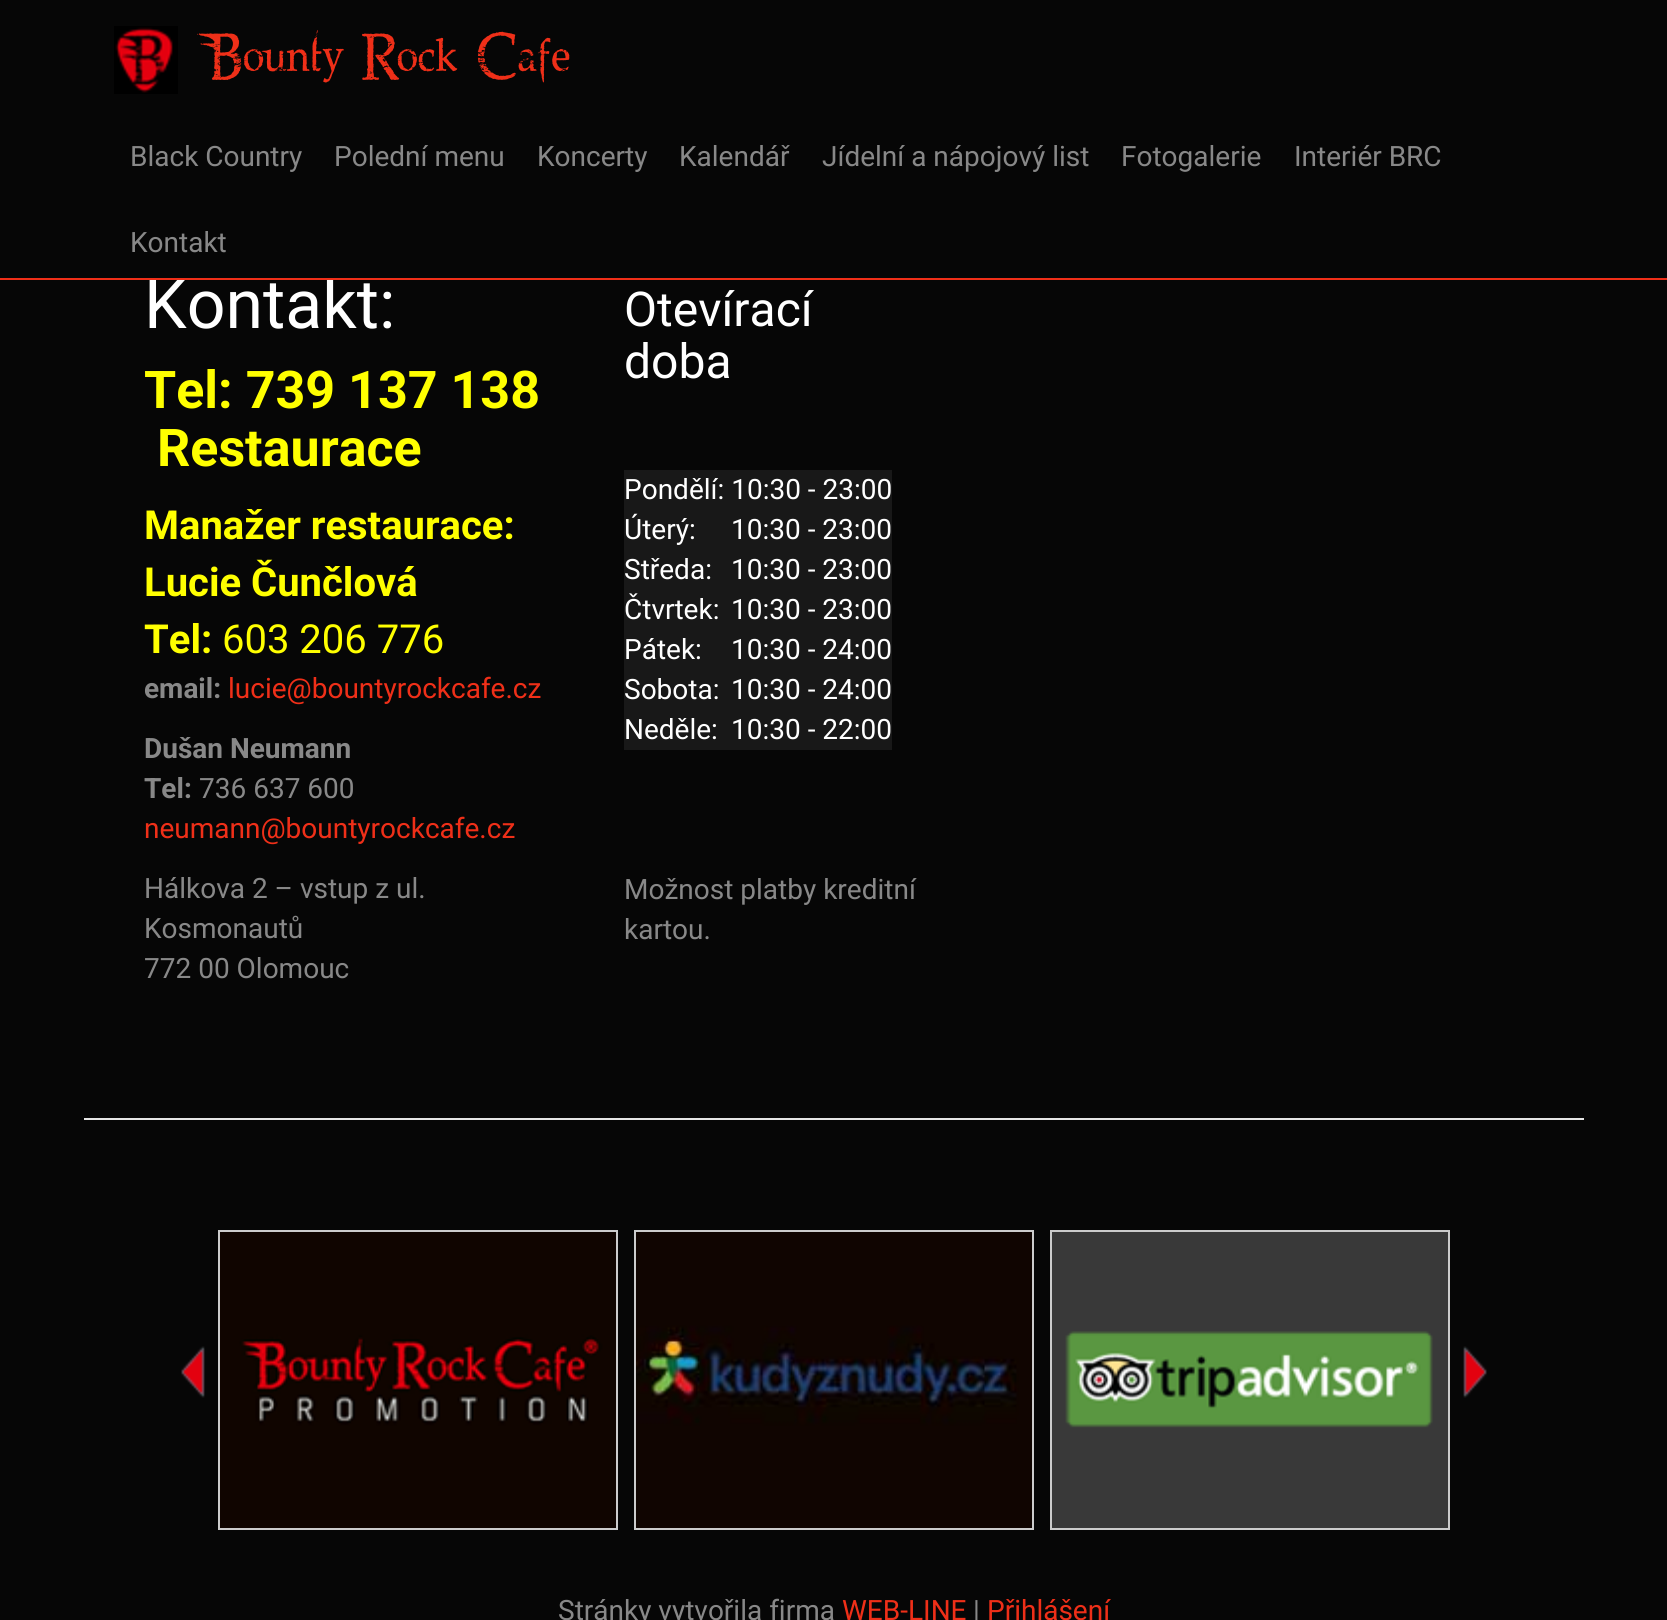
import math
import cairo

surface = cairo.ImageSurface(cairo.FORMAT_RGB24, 1667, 1620)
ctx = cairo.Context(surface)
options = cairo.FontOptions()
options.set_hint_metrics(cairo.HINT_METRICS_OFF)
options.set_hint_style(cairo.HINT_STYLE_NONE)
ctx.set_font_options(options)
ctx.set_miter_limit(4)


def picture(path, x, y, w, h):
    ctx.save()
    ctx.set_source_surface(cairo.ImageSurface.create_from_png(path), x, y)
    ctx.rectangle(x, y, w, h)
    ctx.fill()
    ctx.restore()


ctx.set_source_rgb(0.024, 0.024, 0.024)
ctx.paint()
ctx.select_font_face("Roboto")
ctx.set_font_size(68)
ctx.set_source_rgb(1, 1, 1)
ctx.move_to(144, 328)
ctx.show_text("Kontakt:")
ctx.set_source_rgb(0.024, 0.024, 0.024)
ctx.rectangle(326, 277, 8, 1)
ctx.fill()
ctx.set_source_rgb(0.937, 0.184, 0.094)
ctx.rectangle(0, 278, 1667, 2)
ctx.fill()
picture("img1.png", 114, 26, 64, 68)
ctx.select_font_face("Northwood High")
ctx.set_font_size(60)
ctx.move_to(208, 80)
ctx.show_text("Bounty Rock Cafe")
ctx.select_font_face("Roboto")
ctx.set_font_size(28)
ctx.set_source_rgb(0.533, 0.533, 0.533)
ctx.move_to(130, 166)
ctx.show_text("Black Country")
ctx.move_to(334, 166)
ctx.show_text("Polední menu")
ctx.move_to(537, 166)
ctx.show_text("Koncerty")
ctx.move_to(679, 166)
ctx.show_text("Kalendář")
ctx.move_to(822, 166)
ctx.show_text("Jídelní a nápojový list")
ctx.move_to(1121, 166)
ctx.show_text("Fotogalerie")
ctx.move_to(1294, 166)
ctx.show_text("Interiér BRC")
ctx.move_to(130, 252)
ctx.show_text("Kontakt")
ctx.select_font_face("Roboto", cairo.FONT_SLANT_NORMAL, cairo.FONT_WEIGHT_BOLD)
ctx.set_font_size(52)
ctx.set_source_rgb(1, 1, 0)
ctx.move_to(144, 408)
ctx.show_text("Tel: 739 137 138")
ctx.move_to(157, 466)
ctx.show_text("Restaurace")
ctx.set_font_size(40)
ctx.move_to(144, 539)
ctx.show_text("Manažer restaurace:")
ctx.move_to(144, 596)
ctx.show_text("Lucie Čunčlová")
ctx.move_to(144, 653)
ctx.show_text("Tel:")
ctx.select_font_face("Roboto")
ctx.move_to(222, 653)
ctx.show_text("603 206 776")
ctx.select_font_face("Roboto", cairo.FONT_SLANT_NORMAL, cairo.FONT_WEIGHT_BOLD)
ctx.set_font_size(28)
ctx.set_source_rgb(0.533, 0.533, 0.533)
ctx.move_to(144, 698)
ctx.show_text("email:")
ctx.select_font_face("Roboto")
ctx.set_source_rgb(0.937, 0.184, 0.094)
ctx.move_to(228, 698)
ctx.show_text("lucie@bountyrockcafe.cz")
ctx.select_font_face("Roboto", cairo.FONT_SLANT_NORMAL, cairo.FONT_WEIGHT_BOLD)
ctx.set_source_rgb(0.533, 0.533, 0.533)
ctx.move_to(144, 758)
ctx.show_text("Dušan Neumann")
ctx.move_to(144, 798)
ctx.show_text("Tel:")
ctx.select_font_face("Roboto")
ctx.move_to(199, 798)
ctx.show_text("736 637 600")
ctx.set_source_rgb(0.937, 0.184, 0.094)
ctx.move_to(144, 838)
ctx.show_text("neumann@bountyrockcafe.cz")
ctx.set_source_rgb(0.533, 0.533, 0.533)
ctx.move_to(144, 898)
ctx.show_text("Hálkova 2 – vstup z ul.")
ctx.move_to(144, 938)
ctx.show_text("Kosmonautů")
ctx.move_to(144, 978)
ctx.show_text("772 00 Olomouc")
ctx.set_font_size(48)
ctx.set_source_rgb(1, 1, 1)
ctx.move_to(624, 326)
ctx.show_text("Otevírací")
ctx.move_to(624, 378)
ctx.show_text("doba")
ctx.set_source_rgb(0.094, 0.094, 0.094)
ctx.rectangle(624, 470, 268, 280)
ctx.fill()
ctx.set_font_size(28)
ctx.set_source_rgb(1, 1, 1)
ctx.move_to(624, 499)
ctx.show_text("Pondělí: 10:30 - 23:00")
ctx.move_to(624, 539)
ctx.show_text("Úterý:")
ctx.move_to(731, 539)
ctx.show_text("10:30 - 23:00")
ctx.move_to(624, 579)
ctx.show_text("Středa:")
ctx.move_to(731, 579)
ctx.show_text("10:30 - 23:00")
ctx.move_to(624, 619)
ctx.show_text("Čtvrtek:")
ctx.move_to(731, 619)
ctx.show_text("10:30 - 23:00")
ctx.move_to(624, 659)
ctx.show_text("Pátek:")
ctx.move_to(731, 659)
ctx.show_text("10:30 - 24:00")
ctx.move_to(624, 699)
ctx.show_text("Sobota:")
ctx.move_to(731, 699)
ctx.show_text("10:30 - 24:00")
ctx.move_to(624, 739)
ctx.show_text("Neděle:")
ctx.move_to(731, 739)
ctx.show_text("10:30 - 22:00")
ctx.set_source_rgb(0.533, 0.533, 0.533)
ctx.move_to(624, 899)
ctx.show_text("Možnost platby kreditní")
ctx.move_to(624, 939)
ctx.show_text("kartou.")
ctx.set_source_rgb(0.898, 0.898, 0.898)
ctx.rectangle(84, 1118, 1500, 2)
ctx.fill()
picture("img2.png", 181, 1346, 24, 52)
ctx.rectangle(219, 1231, 398, 298)
ctx.set_source_rgb(0.8, 0.8, 0.8)
ctx.stroke()
picture("img3.png", 220, 1232, 396, 296)
ctx.rectangle(635, 1231, 398, 298)
ctx.stroke()
picture("img4.png", 636, 1232, 396, 296)
ctx.rectangle(1051, 1231, 398, 298)
ctx.stroke()
picture("img5.png", 1052, 1232, 396, 296)
picture("img6.png", 1463, 1346, 24, 52)
ctx.set_source_rgb(0.533, 0.533, 0.533)
ctx.move_to(558, 1620)
ctx.show_text("Stránky vytvořila firma")
ctx.set_source_rgb(0.937, 0.184, 0.094)
ctx.move_to(842, 1620)
ctx.show_text("WEB-LINE")
ctx.set_source_rgb(0.533, 0.533, 0.533)
ctx.move_to(973, 1620)
ctx.show_text("|")
ctx.set_source_rgb(0.937, 0.184, 0.094)
ctx.move_to(987, 1620)
ctx.show_text("Přihlášení")
surface.write_to_png("page.png")
